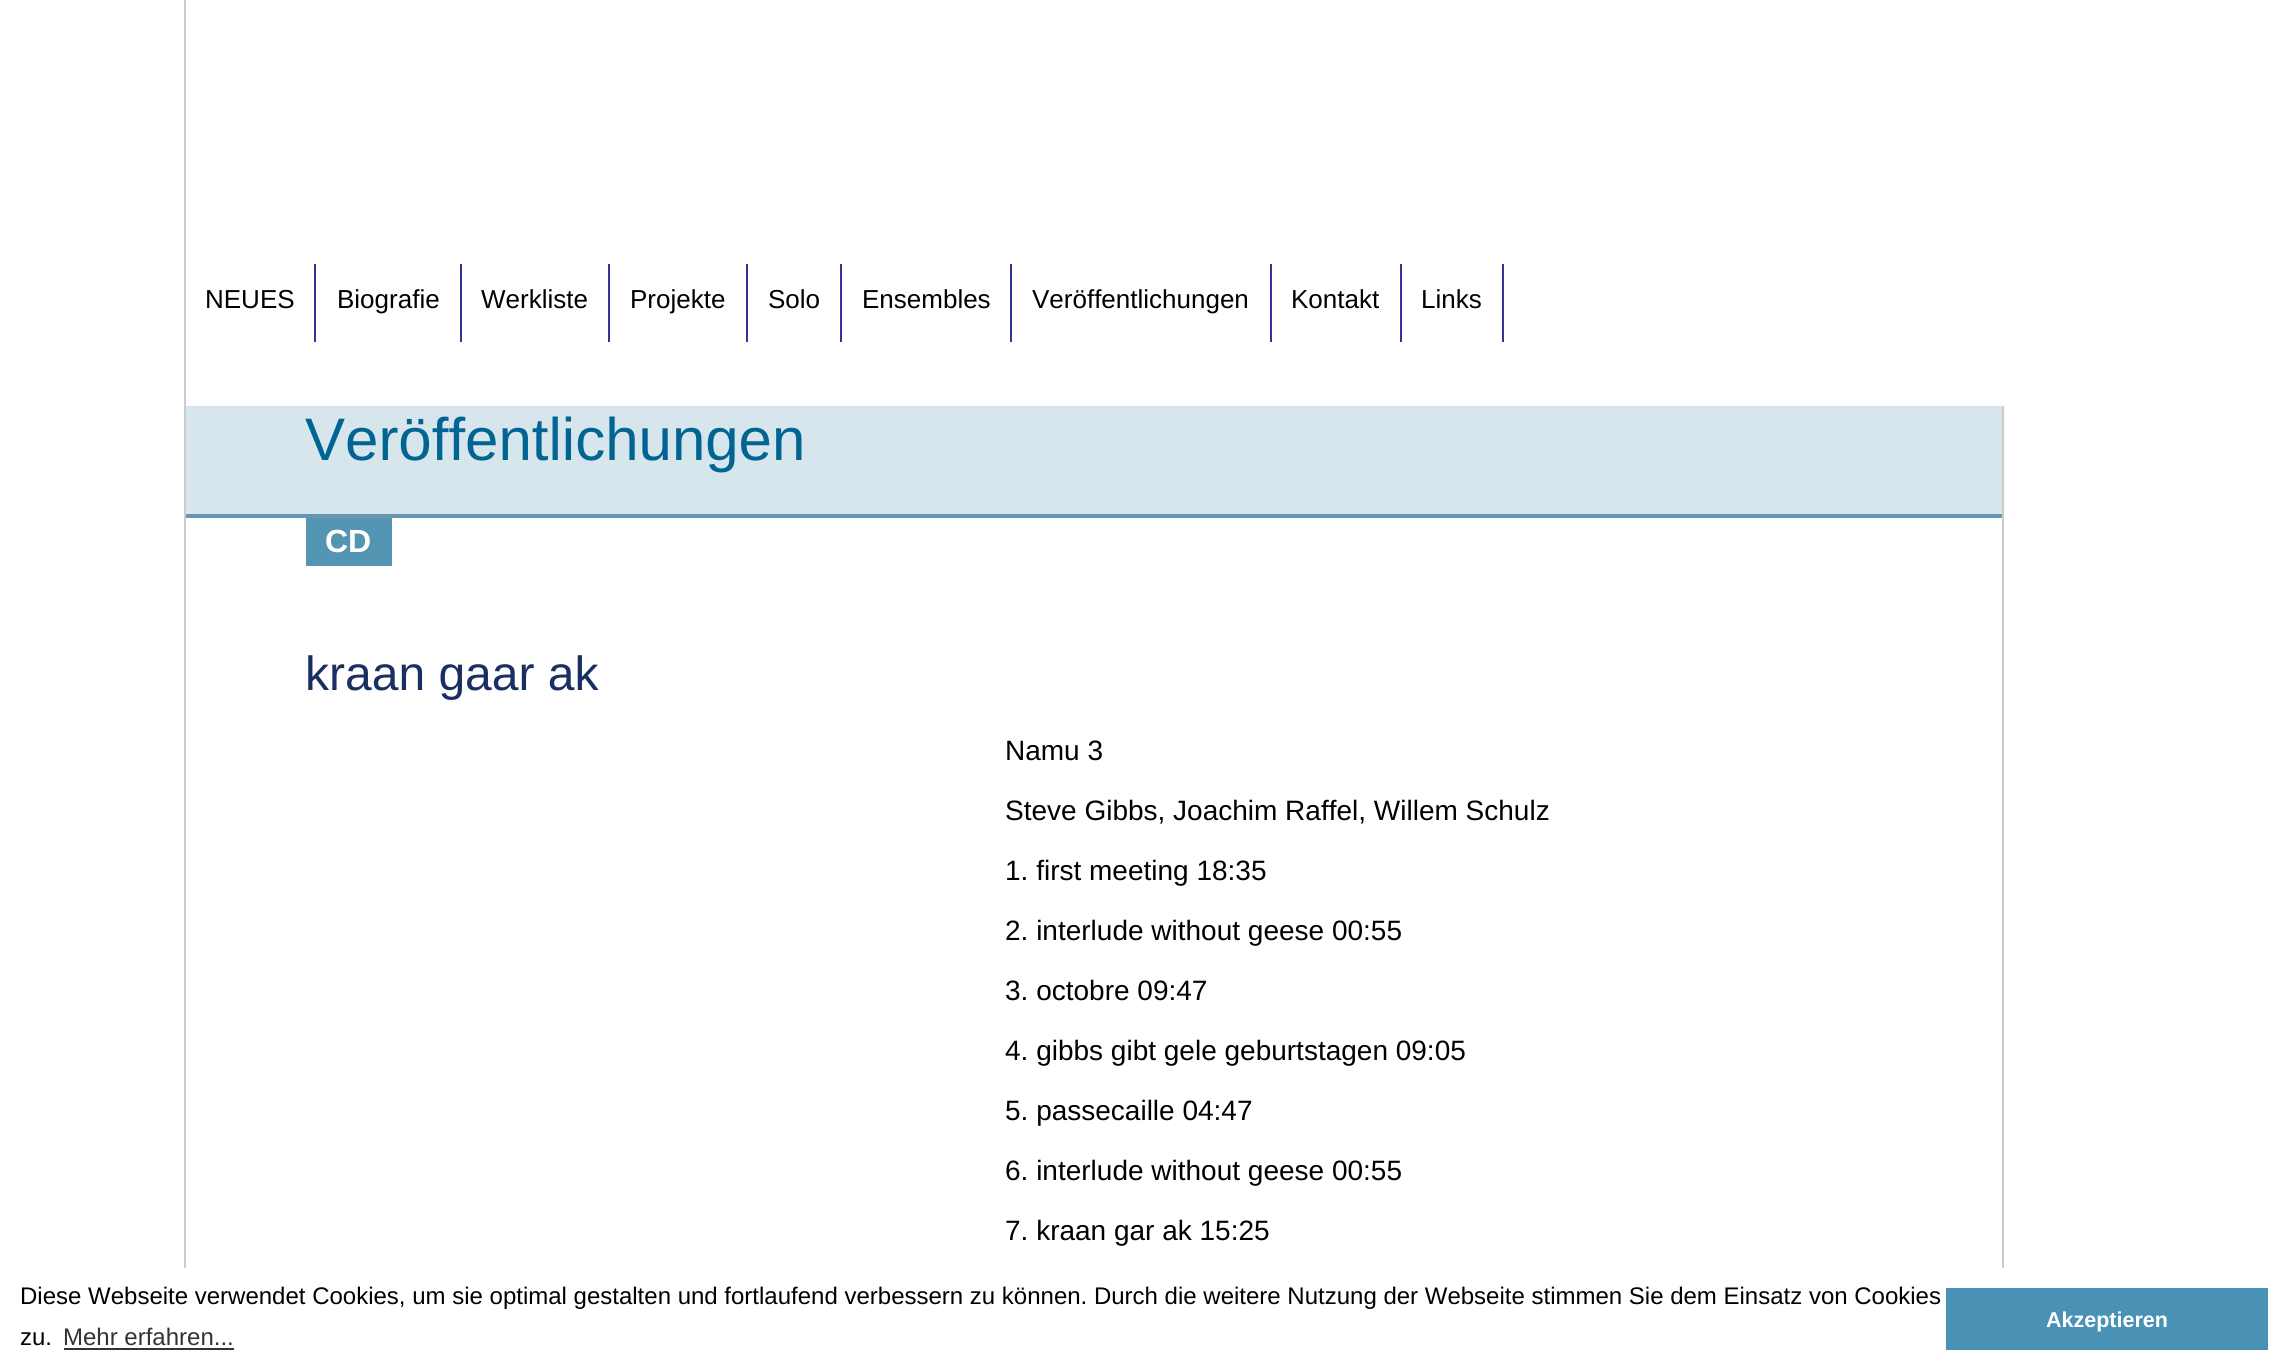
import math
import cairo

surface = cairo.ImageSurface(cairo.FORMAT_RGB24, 2287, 1369)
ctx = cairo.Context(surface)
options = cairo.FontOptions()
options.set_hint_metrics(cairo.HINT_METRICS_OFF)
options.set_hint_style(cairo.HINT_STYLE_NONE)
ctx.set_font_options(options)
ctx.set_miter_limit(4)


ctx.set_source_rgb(1, 1, 1)
ctx.paint()
ctx.set_source_rgb(0.8, 0.8, 0.8)
ctx.rectangle(184, 0, 2, 1268)
ctx.fill()
ctx.set_source_rgb(0.2, 0.2, 0.6)
ctx.rectangle(314, 264, 2, 78)
ctx.fill()
ctx.select_font_face("Liberation Sans")
ctx.set_font_size(26)
ctx.set_source_rgb(0, 0, 0)
ctx.move_to(205, 308)
ctx.show_text("NEUES")
ctx.set_source_rgb(0.2, 0.2, 0.6)
ctx.rectangle(460, 264, 2, 78)
ctx.fill()
ctx.set_source_rgb(0, 0, 0)
ctx.move_to(337, 308)
ctx.show_text("Biografie")
ctx.set_source_rgb(0.2, 0.2, 0.6)
ctx.rectangle(608, 264, 2, 78)
ctx.fill()
ctx.set_source_rgb(0, 0, 0)
ctx.move_to(481, 308)
ctx.show_text("Werkliste")
ctx.set_source_rgb(0.2, 0.2, 0.6)
ctx.rectangle(746, 264, 2, 78)
ctx.fill()
ctx.set_source_rgb(0, 0, 0)
ctx.move_to(630, 308)
ctx.show_text("Projekte")
ctx.set_source_rgb(0.2, 0.2, 0.6)
ctx.rectangle(840, 264, 2, 78)
ctx.fill()
ctx.set_source_rgb(0, 0, 0)
ctx.move_to(768, 308)
ctx.show_text("Solo")
ctx.set_source_rgb(0.2, 0.2, 0.6)
ctx.rectangle(1010, 264, 2, 78)
ctx.fill()
ctx.set_source_rgb(0, 0, 0)
ctx.move_to(862, 308)
ctx.show_text("Ensembles")
ctx.set_source_rgb(0.2, 0.2, 0.6)
ctx.rectangle(1270, 264, 2, 78)
ctx.fill()
ctx.set_source_rgb(0, 0, 0)
ctx.move_to(1032, 308)
ctx.show_text("Veröffentlichungen")
ctx.set_source_rgb(0.2, 0.2, 0.6)
ctx.rectangle(1400, 264, 2, 78)
ctx.fill()
ctx.set_source_rgb(0, 0, 0)
ctx.move_to(1291, 308)
ctx.show_text("Kontakt")
ctx.set_source_rgb(0.2, 0.2, 0.6)
ctx.rectangle(1502, 264, 2, 78)
ctx.fill()
ctx.set_source_rgb(0, 0, 0)
ctx.move_to(1421, 308)
ctx.show_text("Links")
ctx.set_source_rgb(0.8, 0.8, 0.8)
ctx.rectangle(2002, 406, 2, 862)
ctx.fill()
ctx.set_source_rgb(0.843, 0.902, 0.922)
ctx.rectangle(186, 406, 1816, 108)
ctx.fill()
ctx.set_source_rgb(0.392, 0.596, 0.69)
ctx.rectangle(186, 514, 1816, 4)
ctx.fill()
ctx.set_font_size(60)
ctx.set_source_rgb(0.004, 0.392, 0.576)
ctx.move_to(305, 460)
ctx.show_text("Veröffentlichungen")
ctx.set_source_rgb(0.333, 0.584, 0.706)
ctx.rectangle(306, 518, 86, 48)
ctx.fill()
ctx.select_font_face("Liberation Sans", cairo.FONT_SLANT_NORMAL, cairo.FONT_WEIGHT_BOLD)
ctx.set_font_size(32)
ctx.set_source_rgb(1, 1, 1)
ctx.move_to(325, 552)
ctx.show_text("CD")
ctx.select_font_face("Liberation Sans")
ctx.set_font_size(48)
ctx.set_source_rgb(0.102, 0.184, 0.38)
ctx.move_to(305, 690)
ctx.show_text("kraan gaar ak")
ctx.set_font_size(28)
ctx.set_source_rgb(0, 0, 0)
ctx.move_to(1005, 760)
ctx.show_text("Namu 3")
ctx.move_to(1005, 820)
ctx.show_text("Steve Gibbs, Joachim Raffel, Willem Schulz")
ctx.move_to(1005, 880)
ctx.show_text("1. first meeting 18:35")
ctx.move_to(1005, 940)
ctx.show_text("2. interlude without geese 00:55")
ctx.move_to(1005, 1000)
ctx.show_text("3. octobre 09:47")
ctx.move_to(1005, 1060)
ctx.show_text("4. gibbs gibt gele geburtstagen 09:05")
ctx.move_to(1005, 1120)
ctx.show_text("5. passecaille 04:47")
ctx.move_to(1005, 1180)
ctx.show_text("6. interlude without geese 00:55")
ctx.move_to(1005, 1240)
ctx.show_text("7. kraan gar ak 15:25")
ctx.set_font_size(24)
ctx.move_to(20, 1304)
ctx.show_text("Diese Webseite verwendet Cookies, um sie optimal gestalten und fortlaufend verbessern zu können. Durch die weitere Nutzung der Webseite stimmen Sie dem Einsatz von Cookies")
ctx.move_to(20, 1345)
ctx.show_text("zu.")
ctx.set_source_rgb(0.2, 0.2, 0.2)
ctx.move_to(63, 1345)
ctx.show_text("Mehr erfahren...")
ctx.rectangle(64, 1348, 170, 2)
ctx.fill()
ctx.set_source_rgb(0.286, 0.573, 0.71)
ctx.rectangle(1946, 1288, 322, 62)
ctx.fill()
ctx.select_font_face("Liberation Sans", cairo.FONT_SLANT_NORMAL, cairo.FONT_WEIGHT_BOLD)
ctx.set_font_size(21.5)
ctx.set_source_rgb(1, 1, 1)
ctx.move_to(2046, 1327)
ctx.show_text("Akzeptieren")
surface.write_to_png("page.png")
